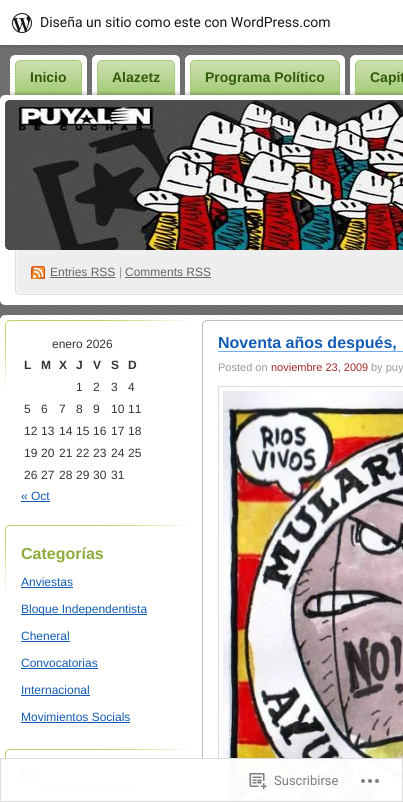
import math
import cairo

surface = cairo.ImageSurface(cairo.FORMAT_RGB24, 403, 802)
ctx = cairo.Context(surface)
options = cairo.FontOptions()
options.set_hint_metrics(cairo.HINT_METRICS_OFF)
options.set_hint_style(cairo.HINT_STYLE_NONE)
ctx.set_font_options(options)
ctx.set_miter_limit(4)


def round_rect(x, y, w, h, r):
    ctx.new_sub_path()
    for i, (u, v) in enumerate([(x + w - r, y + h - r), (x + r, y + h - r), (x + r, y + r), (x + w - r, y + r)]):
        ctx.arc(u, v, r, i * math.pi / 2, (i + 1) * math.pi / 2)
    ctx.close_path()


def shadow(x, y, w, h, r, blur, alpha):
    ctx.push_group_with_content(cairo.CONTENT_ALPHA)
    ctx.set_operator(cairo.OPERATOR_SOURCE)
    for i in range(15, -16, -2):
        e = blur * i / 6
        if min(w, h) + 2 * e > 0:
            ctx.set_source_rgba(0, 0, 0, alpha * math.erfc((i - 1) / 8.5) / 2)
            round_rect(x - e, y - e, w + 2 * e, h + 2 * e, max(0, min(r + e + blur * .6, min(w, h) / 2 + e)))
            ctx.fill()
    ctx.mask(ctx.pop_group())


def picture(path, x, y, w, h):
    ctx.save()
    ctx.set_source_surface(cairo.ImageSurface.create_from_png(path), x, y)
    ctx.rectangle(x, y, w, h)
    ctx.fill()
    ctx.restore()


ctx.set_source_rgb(1, 1, 1)
ctx.paint()
picture("img1.png", 0, 45, 403, 270)
ctx.set_source_rgb(0, 0, 0)
shadow(0, 1, 403, 45, 0, 1, 0.05)
ctx.set_source_rgba(0, 0, 0, 0.08)
ctx.new_path()
ctx.move_to(1, 45)
ctx.line_to(1, 48)
ctx.line_to(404, 48)
ctx.line_to(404, 3)
ctx.line_to(403, 3)
ctx.line_to(403, 45)
ctx.close_path()
ctx.fill()
ctx.set_source_rgb(1, 1, 1)
ctx.rectangle(0, 0, 403, 45)
ctx.fill()
picture("img2.png", 12, 13, 20, 20)
ctx.select_font_face("Roboto")
ctx.set_font_size(14)
ctx.set_source_rgb(0.09, 0.09, 0.09)
ctx.move_to(40, 27)
ctx.show_text("Diseña un sitio como este con WordPress.com")
picture("img3.png", 20, 55, 67, 40)
picture("img4.png", 10, 55, 10, 40)
ctx.select_font_face("Liberation Sans", cairo.FONT_SLANT_NORMAL, cairo.FONT_WEIGHT_BOLD)
ctx.set_source_rgb(0.196, 0.357, 0.039)
ctx.move_to(30, 82)
ctx.show_text("Inicio")
picture("img5.png", 102, 55, 78, 40)
picture("img4.png", 92, 55, 10, 40)
ctx.move_to(112, 82)
ctx.show_text("Alazetz")
picture("img6.png", 195, 55, 150, 40)
picture("img4.png", 185, 55, 10, 40)
ctx.move_to(205, 82)
ctx.show_text("Programa Político")
picture("img7.png", 360, 55, 43, 40)
picture("img4.png", 350, 55, 10, 40)
ctx.move_to(370, 82)
ctx.show_text("Capit")
picture("img9.png", 5, 100, 398, 150)
picture("img8.png", 0, 95, 403, 210)
picture("img10.png", 31, 266, 14, 13)
ctx.select_font_face("Liberation Sans")
ctx.set_font_size(12)
ctx.set_source_rgb(0.4, 0.4, 0.4)
ctx.move_to(50, 276)
ctx.show_text("Entries RSS")
ctx.rectangle(50, 277, 41, 1)
ctx.fill()
ctx.new_path()
ctx.move_to(90.5, 277.5)
ctx.line_to(115.5, 277.5)
ctx.set_line_width(1)
ctx.set_dash([1, 1])
ctx.stroke()
ctx.rectangle(91, 277, 24, 1)
ctx.fill()
ctx.set_source_rgb(0.6, 0.6, 0.6)
ctx.move_to(119, 276)
ctx.show_text("|")
ctx.set_source_rgb(0.4, 0.4, 0.4)
ctx.move_to(125, 276)
ctx.show_text("Comments RSS")
ctx.rectangle(125, 277, 86, 1)
ctx.fill()
picture("img11.png", 0, 315, 5, 5)
picture("img12.png", 5, 320, 188, 72)
ctx.set_source_rgb(0.2, 0.2, 0.2)
ctx.move_to(52, 348)
ctx.show_text("enero 2026")
ctx.select_font_face("Liberation Sans", cairo.FONT_SLANT_NORMAL, cairo.FONT_WEIGHT_BOLD)
ctx.move_to(24, 369)
ctx.show_text("L")
ctx.move_to(41, 369)
ctx.show_text("M")
ctx.move_to(59, 369)
ctx.show_text("X")
ctx.move_to(76, 369)
ctx.show_text("J")
ctx.move_to(93, 369)
ctx.show_text("V")
ctx.move_to(111, 369)
ctx.show_text("S")
ctx.move_to(128, 369)
ctx.show_text("D")
ctx.select_font_face("Liberation Sans")
ctx.move_to(76, 391)
ctx.show_text("1")
ctx.move_to(93, 391)
ctx.show_text("2")
ctx.move_to(111, 391)
ctx.show_text("3")
ctx.move_to(128, 391)
ctx.show_text("4")
ctx.move_to(24, 413)
ctx.show_text("5")
ctx.move_to(41, 413)
ctx.show_text("6")
ctx.move_to(59, 413)
ctx.show_text("7")
ctx.move_to(76, 413)
ctx.show_text("8")
ctx.move_to(93, 413)
ctx.show_text("9")
ctx.move_to(111, 413)
ctx.show_text("10")
ctx.move_to(128, 413)
ctx.show_text("11")
ctx.move_to(24, 435)
ctx.show_text("12")
ctx.move_to(41, 435)
ctx.show_text("13")
ctx.move_to(59, 435)
ctx.show_text("14")
ctx.move_to(76, 435)
ctx.show_text("15")
ctx.move_to(93, 435)
ctx.show_text("16")
ctx.move_to(111, 435)
ctx.show_text("17")
ctx.move_to(128, 435)
ctx.show_text("18")
ctx.move_to(24, 457)
ctx.show_text("19")
ctx.move_to(41, 457)
ctx.show_text("20")
ctx.move_to(59, 457)
ctx.show_text("21")
ctx.move_to(76, 457)
ctx.show_text("22")
ctx.move_to(93, 457)
ctx.show_text("23")
ctx.move_to(111, 457)
ctx.show_text("24")
ctx.move_to(128, 457)
ctx.show_text("25")
ctx.move_to(24, 479)
ctx.show_text("26")
ctx.move_to(41, 479)
ctx.show_text("27")
ctx.move_to(59, 479)
ctx.show_text("28")
ctx.move_to(76, 479)
ctx.show_text("29")
ctx.move_to(93, 479)
ctx.show_text("30")
ctx.move_to(111, 479)
ctx.show_text("31")
ctx.set_source_rgb(0.063, 0.361, 0.714)
ctx.move_to(21, 500)
ctx.show_text("« Oct")
ctx.rectangle(21, 501, 29, 1)
ctx.fill()
picture("img12.png", 5, 525, 188, 72)
ctx.select_font_face("Liberation Sans", cairo.FONT_SLANT_NORMAL, cairo.FONT_WEIGHT_BOLD)
ctx.set_font_size(16)
ctx.set_source_rgb(0.553, 0.671, 0.231)
ctx.move_to(21, 559)
ctx.show_text("Categorías")
ctx.select_font_face("Liberation Sans")
ctx.set_font_size(12)
ctx.set_source_rgb(0.063, 0.361, 0.714)
ctx.move_to(21, 586)
ctx.show_text("Anviestas")
ctx.rectangle(21, 587, 52, 1)
ctx.fill()
ctx.rectangle(21, 614, 126, 1)
ctx.fill()
ctx.move_to(21, 613)
ctx.show_text("Bloque Independentista")
ctx.move_to(21, 640)
ctx.show_text("Cheneral")
ctx.rectangle(21, 641, 49, 1)
ctx.fill()
ctx.move_to(21, 667)
ctx.show_text("Convocatorias")
ctx.rectangle(21, 668, 77, 1)
ctx.fill()
ctx.move_to(21, 694)
ctx.show_text("Internacional")
ctx.rectangle(21, 695, 69, 1)
ctx.fill()
ctx.move_to(21, 721)
ctx.show_text("Movimientos Socials")
ctx.rectangle(21, 722, 109, 1)
ctx.fill()
picture("img13.png", 5, 749, 188, 53)
ctx.set_source_rgb(1, 0.647, 0)
ctx.rectangle(21, 769, 14, 14)
ctx.fill()
picture("img14.png", 21, 769, 14, 14)
ctx.set_source_rgb(0.063, 0.361, 0.714)
ctx.rectangle(39, 784, 99, 1)
ctx.fill()
ctx.set_source_rgb(0.737, 0.737, 0.737)
ctx.rectangle(202, 320, 1, 482)
ctx.fill()
picture("img15.png", 202, 320, 201, 4)
ctx.set_source_rgb(0.459, 0.671, 0.918)
ctx.rectangle(218, 351, 185, 1)
ctx.fill()
ctx.select_font_face("Liberation Sans", cairo.FONT_SLANT_NORMAL, cairo.FONT_WEIGHT_BOLD)
ctx.set_font_size(16)
ctx.set_source_rgb(0.063, 0.361, 0.714)
ctx.move_to(218, 348)
ctx.show_text("Noventa años después,")
ctx.select_font_face("Liberation Sans")
ctx.set_font_size(11)
ctx.set_source_rgb(0.6, 0.6, 0.6)
ctx.move_to(218, 371)
ctx.show_text("Posted on")
ctx.set_source_rgb(0.631, 0.165, 0.165)
ctx.move_to(271, 371)
ctx.show_text("noviembre 23, 2009")
ctx.set_source_rgb(0.6, 0.6, 0.6)
ctx.move_to(371, 371)
ctx.show_text("by puy")
ctx.rectangle(218.5, 386.5, 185, 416)
ctx.set_source_rgb(0.867, 0.867, 0.867)
ctx.set_dash([])
ctx.stroke()
picture("img16.png", 223, 391, 180, 411)
ctx.set_source_rgba(1, 1, 1, 0.98)
ctx.rectangle(5, 758, 398, 44)
ctx.fill()
ctx.rectangle(0.5, 758.5, 402, 43)
ctx.set_source_rgba(0.863, 0.863, 0.871, 0.98)
ctx.stroke()
picture("img17.png", 249, 773, 18, 17)
ctx.select_font_face("Roboto")
ctx.set_font_size(13)
ctx.set_source_rgb(0.482, 0.498, 0.518)
ctx.move_to(274, 785)
ctx.show_text("Suscribirse")
picture("img18.png", 361, 779, 18, 4)
surface.write_to_png("page.png")
